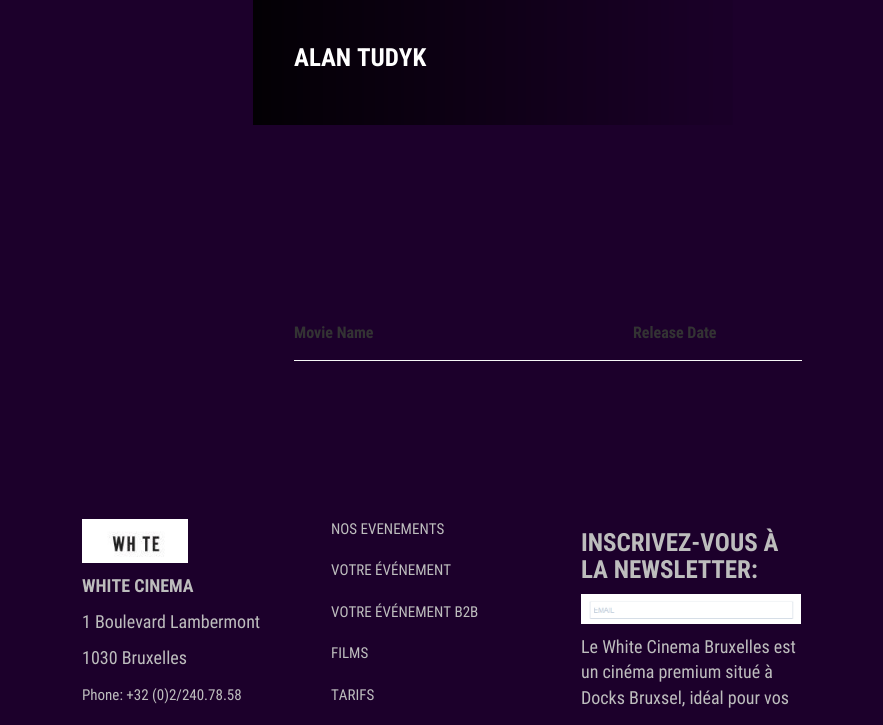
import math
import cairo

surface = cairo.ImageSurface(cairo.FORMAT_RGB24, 883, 725)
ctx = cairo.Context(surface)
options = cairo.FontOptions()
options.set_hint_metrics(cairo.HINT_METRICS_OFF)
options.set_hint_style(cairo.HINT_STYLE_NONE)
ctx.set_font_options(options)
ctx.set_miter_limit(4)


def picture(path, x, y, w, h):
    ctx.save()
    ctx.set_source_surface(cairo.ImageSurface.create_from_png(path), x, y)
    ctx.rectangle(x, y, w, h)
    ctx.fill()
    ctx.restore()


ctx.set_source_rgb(0.11, 0, 0.169)
ctx.paint()
gradient = cairo.LinearGradient(253, 62, 802, 62)
gradient.add_color_stop_rgba(0, 0.012, 0, 0.016, 1)
gradient.add_color_stop_rgba(0.85, 0.102, 0, 0.157, 1)
gradient.add_color_stop_rgba(1, 0.11, 0, 0.169, 1)
ctx.set_source(gradient)
ctx.rectangle(253, 0, 480, 125)
ctx.fill()
ctx.select_font_face("Roboto Condensed", cairo.FONT_SLANT_NORMAL, cairo.FONT_WEIGHT_BOLD)
ctx.set_font_size(25)
ctx.set_source_rgb(1, 1, 1)
ctx.move_to(294, 66)
ctx.show_text("ALAN TUDYK")
ctx.set_source_rgb(0.965, 0.965, 0.965)
ctx.rectangle(294, 360, 508, 1)
ctx.fill()
ctx.set_font_size(16)
ctx.set_source_rgb(0.2, 0.2, 0.2)
ctx.move_to(294, 338)
ctx.show_text("Movie Name")
ctx.move_to(633, 338)
ctx.show_text("Release Date")
picture("img1.png", 82, 519, 106, 44)
ctx.set_font_size(18)
ctx.set_source_rgb(0.741, 0.741, 0.741)
ctx.move_to(82, 592)
ctx.show_text("WHITE CINEMA")
ctx.select_font_face("Roboto Condensed")
ctx.move_to(82, 628)
ctx.show_text("1 Boulevard Lambermont")
ctx.move_to(82, 664)
ctx.show_text("1030 Bruxelles")
ctx.set_font_size(15)
ctx.move_to(82, 700)
ctx.show_text("Phone: +32 (0)2/240.78.58")
ctx.move_to(331, 534)
ctx.show_text("NOS EVENEMENTS")
ctx.move_to(331, 575)
ctx.show_text("VOTRE ÉVÉNEMENT")
ctx.move_to(331, 617)
ctx.show_text("VOTRE ÉVÉNEMENT B2B")
ctx.move_to(331, 658)
ctx.show_text("FILMS")
ctx.move_to(331, 700)
ctx.show_text("TARIFS")
ctx.select_font_face("Roboto Condensed", cairo.FONT_SLANT_NORMAL, cairo.FONT_WEIGHT_BOLD)
ctx.set_font_size(25)
ctx.move_to(581, 551)
ctx.show_text("INSCRIVEZ-VOUS À")
ctx.move_to(581, 578)
ctx.show_text("LA NEWSLETTER:")
picture("img2.png", 581, 594, 220, 30)
ctx.select_font_face("Roboto Condensed")
ctx.set_font_size(18)
ctx.move_to(581, 653)
ctx.show_text("Le White Cinema Bruxelles est")
ctx.move_to(581, 678)
ctx.show_text("un cinéma premium situé à")
ctx.move_to(581, 704)
ctx.show_text("Docks Bruxsel, idéal pour vos")
surface.write_to_png("page.png")
